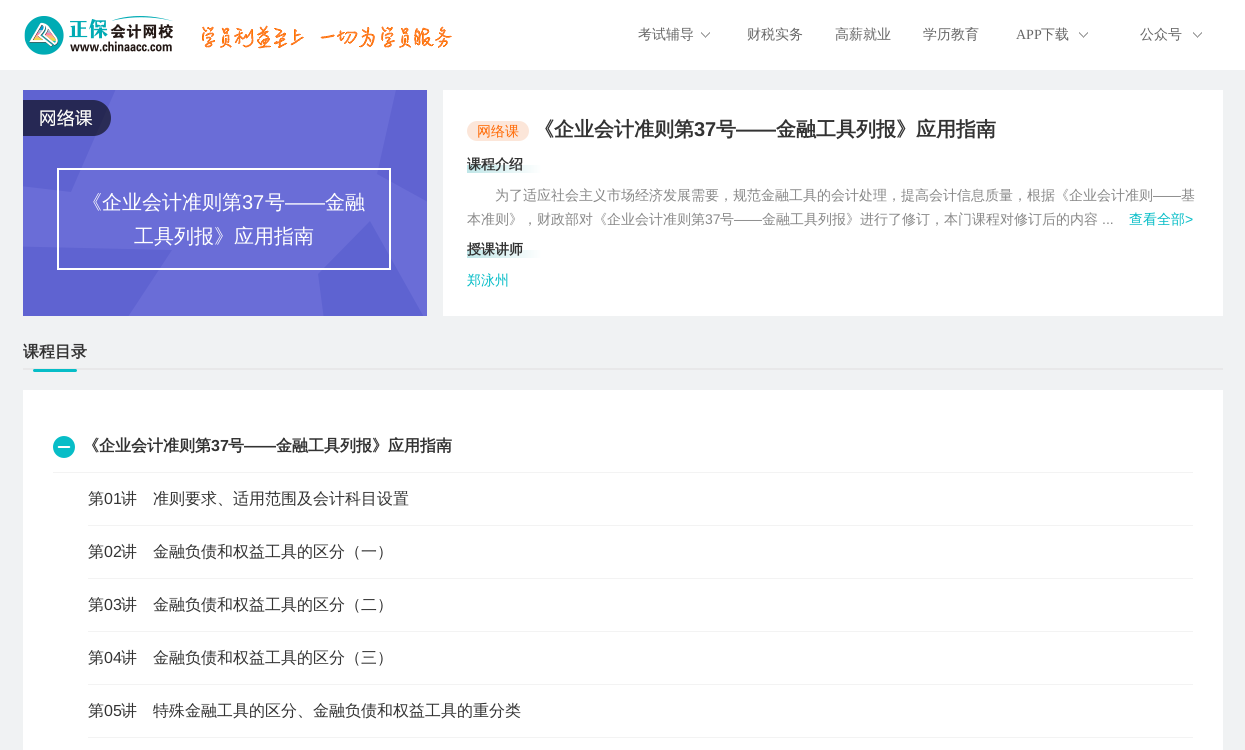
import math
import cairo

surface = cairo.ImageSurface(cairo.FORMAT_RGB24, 1245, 750)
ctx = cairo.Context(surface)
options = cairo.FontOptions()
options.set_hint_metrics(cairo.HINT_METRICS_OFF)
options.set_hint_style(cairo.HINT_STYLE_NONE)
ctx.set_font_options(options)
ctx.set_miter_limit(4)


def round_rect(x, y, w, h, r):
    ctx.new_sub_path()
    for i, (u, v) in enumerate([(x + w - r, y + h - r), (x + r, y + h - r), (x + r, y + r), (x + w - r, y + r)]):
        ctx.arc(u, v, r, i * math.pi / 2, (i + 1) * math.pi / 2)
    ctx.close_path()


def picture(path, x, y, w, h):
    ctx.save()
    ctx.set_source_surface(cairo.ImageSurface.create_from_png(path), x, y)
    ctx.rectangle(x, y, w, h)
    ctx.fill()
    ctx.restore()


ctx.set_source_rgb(0.941, 0.949, 0.953)
ctx.paint()
ctx.set_source_rgb(1, 1, 1)
ctx.rectangle(0, 0, 1245, 70)
ctx.fill()
picture("img1.png", 24, 16, 149, 39)
picture("img2.png", 202, 25, 250, 24)
picture("img3.png", 701, 32, 9, 6)
ctx.select_font_face("WenQuanYi Zen Hei Medium")
ctx.set_font_size(14)
ctx.set_source_rgb(0.4, 0.4, 0.4)
ctx.move_to(638, 39)
ctx.show_text("考试辅导")
ctx.move_to(747, 39)
ctx.show_text("财税实务")
ctx.move_to(835, 39)
ctx.show_text("高薪就业")
ctx.move_to(923, 39)
ctx.show_text("学历教育")
picture("img3.png", 1079, 32, 9, 6)
ctx.select_font_face("Liberation Serif")
ctx.move_to(1016, 39)
ctx.show_text("APP")
ctx.select_font_face("WenQuanYi Zen Hei Medium")
ctx.move_to(1041, 39)
ctx.show_text("下载")
picture("img3.png", 1193, 32, 9, 6)
ctx.move_to(1140, 39)
ctx.show_text("公众号")
picture("img4.png", 23, 90, 404, 226)
ctx.rectangle(58, 169, 332, 100)
ctx.set_source_rgb(1, 1, 1)
ctx.stroke()
ctx.set_font_size(20)
ctx.move_to(82, 209)
ctx.show_text("《企业会计准则第")
ctx.select_font_face("Liberation Sans")
ctx.move_to(242, 209)
ctx.show_text("37")
ctx.select_font_face("WenQuanYi Zen Hei Medium")
ctx.move_to(265, 209)
ctx.show_text("号")
ctx.select_font_face("Liberation Sans")
ctx.move_to(285, 209)
ctx.show_text("——")
ctx.select_font_face("WenQuanYi Zen Hei Medium")
ctx.move_to(325, 209)
ctx.show_text("金融")
ctx.move_to(134, 243)
ctx.show_text("工具列报》应用指南")
ctx.rectangle(443, 90, 780, 226)
ctx.fill()
ctx.set_source_rgb(0.988, 0.902, 0.851)
round_rect(467, 121, 62, 20, 10)
ctx.fill()
ctx.set_font_size(14)
ctx.set_source_rgb(1, 0.416, 0.02)
ctx.move_to(477, 136)
ctx.show_text("网络课")
ctx.select_font_face("WenQuanYi Zen Hei", cairo.FONT_SLANT_NORMAL, cairo.FONT_WEIGHT_BOLD)
ctx.set_font_size(20)
ctx.set_source_rgb(0.2, 0.2, 0.2)
ctx.move_to(534, 136)
ctx.show_text("《企业会计准则第")
ctx.select_font_face("Liberation Sans", cairo.FONT_SLANT_NORMAL, cairo.FONT_WEIGHT_BOLD)
ctx.move_to(694, 136)
ctx.show_text("37")
ctx.select_font_face("WenQuanYi Zen Hei", cairo.FONT_SLANT_NORMAL, cairo.FONT_WEIGHT_BOLD)
ctx.move_to(716, 136)
ctx.show_text("号")
ctx.select_font_face("Liberation Sans", cairo.FONT_SLANT_NORMAL, cairo.FONT_WEIGHT_BOLD)
ctx.move_to(736, 136)
ctx.show_text("——")
ctx.select_font_face("WenQuanYi Zen Hei", cairo.FONT_SLANT_NORMAL, cairo.FONT_WEIGHT_BOLD)
ctx.move_to(776, 136)
ctx.show_text("金融工具列报》应用指南")
gradient = cairo.LinearGradient(542, 169, 467, 169)
gradient.add_color_stop_rgba(0, 1, 1, 1, 1)
gradient.add_color_stop_rgba(1, 0.753, 0.902, 0.91, 1)
ctx.set_source(gradient)
ctx.rectangle(467, 165, 75, 8)
ctx.fill()
ctx.set_font_size(14)
ctx.set_source_rgb(0.2, 0.2, 0.2)
ctx.move_to(467, 169)
ctx.show_text("课程介绍")
ctx.select_font_face("WenQuanYi Zen Hei Medium")
ctx.set_source_rgb(0.533, 0.533, 0.533)
ctx.move_to(495, 200)
ctx.show_text("为了适应社会主义市场经济发展需要，规范金融工具的会计处理，提高会计信息质量，根据《企业会计准则")
ctx.select_font_face("Liberation Sans")
ctx.move_to(1153, 200)
ctx.show_text("——")
ctx.select_font_face("WenQuanYi Zen Hei Medium")
ctx.move_to(1181, 200)
ctx.show_text("基")
ctx.move_to(467, 224)
ctx.show_text("本准则》，财政部对《企业会计准则第")
ctx.select_font_face("Liberation Sans")
ctx.move_to(705, 224)
ctx.show_text("37")
ctx.select_font_face("WenQuanYi Zen Hei Medium")
ctx.move_to(720, 224)
ctx.show_text("号")
ctx.select_font_face("Liberation Sans")
ctx.move_to(734, 224)
ctx.show_text("——")
ctx.select_font_face("WenQuanYi Zen Hei Medium")
ctx.move_to(762, 224)
ctx.show_text("金融工具列报》进行了修订，本门课程对修订后的内容")
ctx.select_font_face("Liberation Sans")
ctx.move_to(1102, 224)
ctx.show_text("...")
ctx.select_font_face("WenQuanYi Zen Hei Medium")
ctx.set_source_rgb(0.027, 0.741, 0.78)
ctx.move_to(1129, 224)
ctx.show_text("查看全部")
ctx.select_font_face("Liberation Sans")
ctx.move_to(1185, 224)
ctx.show_text(">")
gradient = cairo.LinearGradient(542, 254, 467, 254)
gradient.add_color_stop_rgba(0, 1, 1, 1, 1)
gradient.add_color_stop_rgba(1, 0.753, 0.902, 0.91, 1)
ctx.set_source(gradient)
ctx.rectangle(467, 250, 75, 8)
ctx.fill()
ctx.select_font_face("WenQuanYi Zen Hei", cairo.FONT_SLANT_NORMAL, cairo.FONT_WEIGHT_BOLD)
ctx.set_source_rgb(0.2, 0.2, 0.2)
ctx.move_to(467, 254)
ctx.show_text("授课讲师")
ctx.select_font_face("WenQuanYi Zen Hei Medium")
ctx.set_source_rgb(0.027, 0.741, 0.78)
ctx.move_to(467, 285)
ctx.show_text("郑泳州")
ctx.set_source_rgb(0.91, 0.91, 0.914)
ctx.rectangle(23, 368, 1200, 2)
ctx.fill()
ctx.select_font_face("WenQuanYi Zen Hei", cairo.FONT_SLANT_NORMAL, cairo.FONT_WEIGHT_BOLD)
ctx.set_font_size(16)
ctx.set_source_rgb(0.2, 0.2, 0.2)
ctx.move_to(23, 357)
ctx.show_text("课程目录")
ctx.set_source_rgb(0.027, 0.741, 0.78)
round_rect(33, 369, 44, 3, 1.5)
ctx.fill()
ctx.set_source_rgb(1, 1, 1)
ctx.rectangle(23, 390, 1200, 360)
ctx.fill()
ctx.set_source_rgb(0.953, 0.953, 0.953)
ctx.rectangle(53, 472, 1140, 1)
ctx.fill()
picture("img5.png", 53, 436, 22, 22)
ctx.set_source_rgb(0.2, 0.2, 0.2)
ctx.move_to(83, 451)
ctx.show_text("《企业会计准则第")
ctx.select_font_face("Liberation Sans", cairo.FONT_SLANT_NORMAL, cairo.FONT_WEIGHT_BOLD)
ctx.move_to(211, 451)
ctx.show_text("37")
ctx.select_font_face("WenQuanYi Zen Hei", cairo.FONT_SLANT_NORMAL, cairo.FONT_WEIGHT_BOLD)
ctx.move_to(228, 451)
ctx.show_text("号")
ctx.select_font_face("Liberation Sans", cairo.FONT_SLANT_NORMAL, cairo.FONT_WEIGHT_BOLD)
ctx.move_to(244, 451)
ctx.show_text("——")
ctx.select_font_face("WenQuanYi Zen Hei", cairo.FONT_SLANT_NORMAL, cairo.FONT_WEIGHT_BOLD)
ctx.move_to(276, 451)
ctx.show_text("金融工具列报》应用指南")
ctx.set_source_rgb(0.953, 0.953, 0.953)
ctx.rectangle(88, 525, 1105, 1)
ctx.fill()
ctx.select_font_face("WenQuanYi Zen Hei Medium")
ctx.set_source_rgb(0.2, 0.2, 0.2)
ctx.move_to(88, 504)
ctx.show_text("第")
ctx.select_font_face("Liberation Sans")
ctx.move_to(104, 504)
ctx.show_text("01")
ctx.select_font_face("WenQuanYi Zen Hei Medium")
ctx.move_to(121, 504)
ctx.show_text("讲　准则要求、适用范围及会计科目设置")
ctx.set_source_rgb(0.953, 0.953, 0.953)
ctx.rectangle(88, 578, 1105, 1)
ctx.fill()
ctx.set_source_rgb(0.2, 0.2, 0.2)
ctx.move_to(88, 557)
ctx.show_text("第")
ctx.select_font_face("Liberation Sans")
ctx.move_to(104, 557)
ctx.show_text("02")
ctx.select_font_face("WenQuanYi Zen Hei Medium")
ctx.move_to(121, 557)
ctx.show_text("讲　金融负债和权益工具的区分（一）")
ctx.set_source_rgb(0.953, 0.953, 0.953)
ctx.rectangle(88, 631, 1105, 1)
ctx.fill()
ctx.set_source_rgb(0.2, 0.2, 0.2)
ctx.move_to(88, 610)
ctx.show_text("第")
ctx.select_font_face("Liberation Sans")
ctx.move_to(104, 610)
ctx.show_text("03")
ctx.select_font_face("WenQuanYi Zen Hei Medium")
ctx.move_to(121, 610)
ctx.show_text("讲　金融负债和权益工具的区分（二）")
ctx.set_source_rgb(0.953, 0.953, 0.953)
ctx.rectangle(88, 684, 1105, 1)
ctx.fill()
ctx.set_source_rgb(0.2, 0.2, 0.2)
ctx.move_to(88, 663)
ctx.show_text("第")
ctx.select_font_face("Liberation Sans")
ctx.move_to(104, 663)
ctx.show_text("04")
ctx.select_font_face("WenQuanYi Zen Hei Medium")
ctx.move_to(121, 663)
ctx.show_text("讲　金融负债和权益工具的区分（三）")
ctx.set_source_rgb(0.953, 0.953, 0.953)
ctx.rectangle(88, 737, 1105, 1)
ctx.fill()
ctx.set_source_rgb(0.2, 0.2, 0.2)
ctx.move_to(88, 716)
ctx.show_text("第")
ctx.select_font_face("Liberation Sans")
ctx.move_to(104, 716)
ctx.show_text("05")
ctx.select_font_face("WenQuanYi Zen Hei Medium")
ctx.move_to(121, 716)
ctx.show_text("讲　特殊金融工具的区分、金融负债和权益工具的重分类")
surface.write_to_png("page.png")
